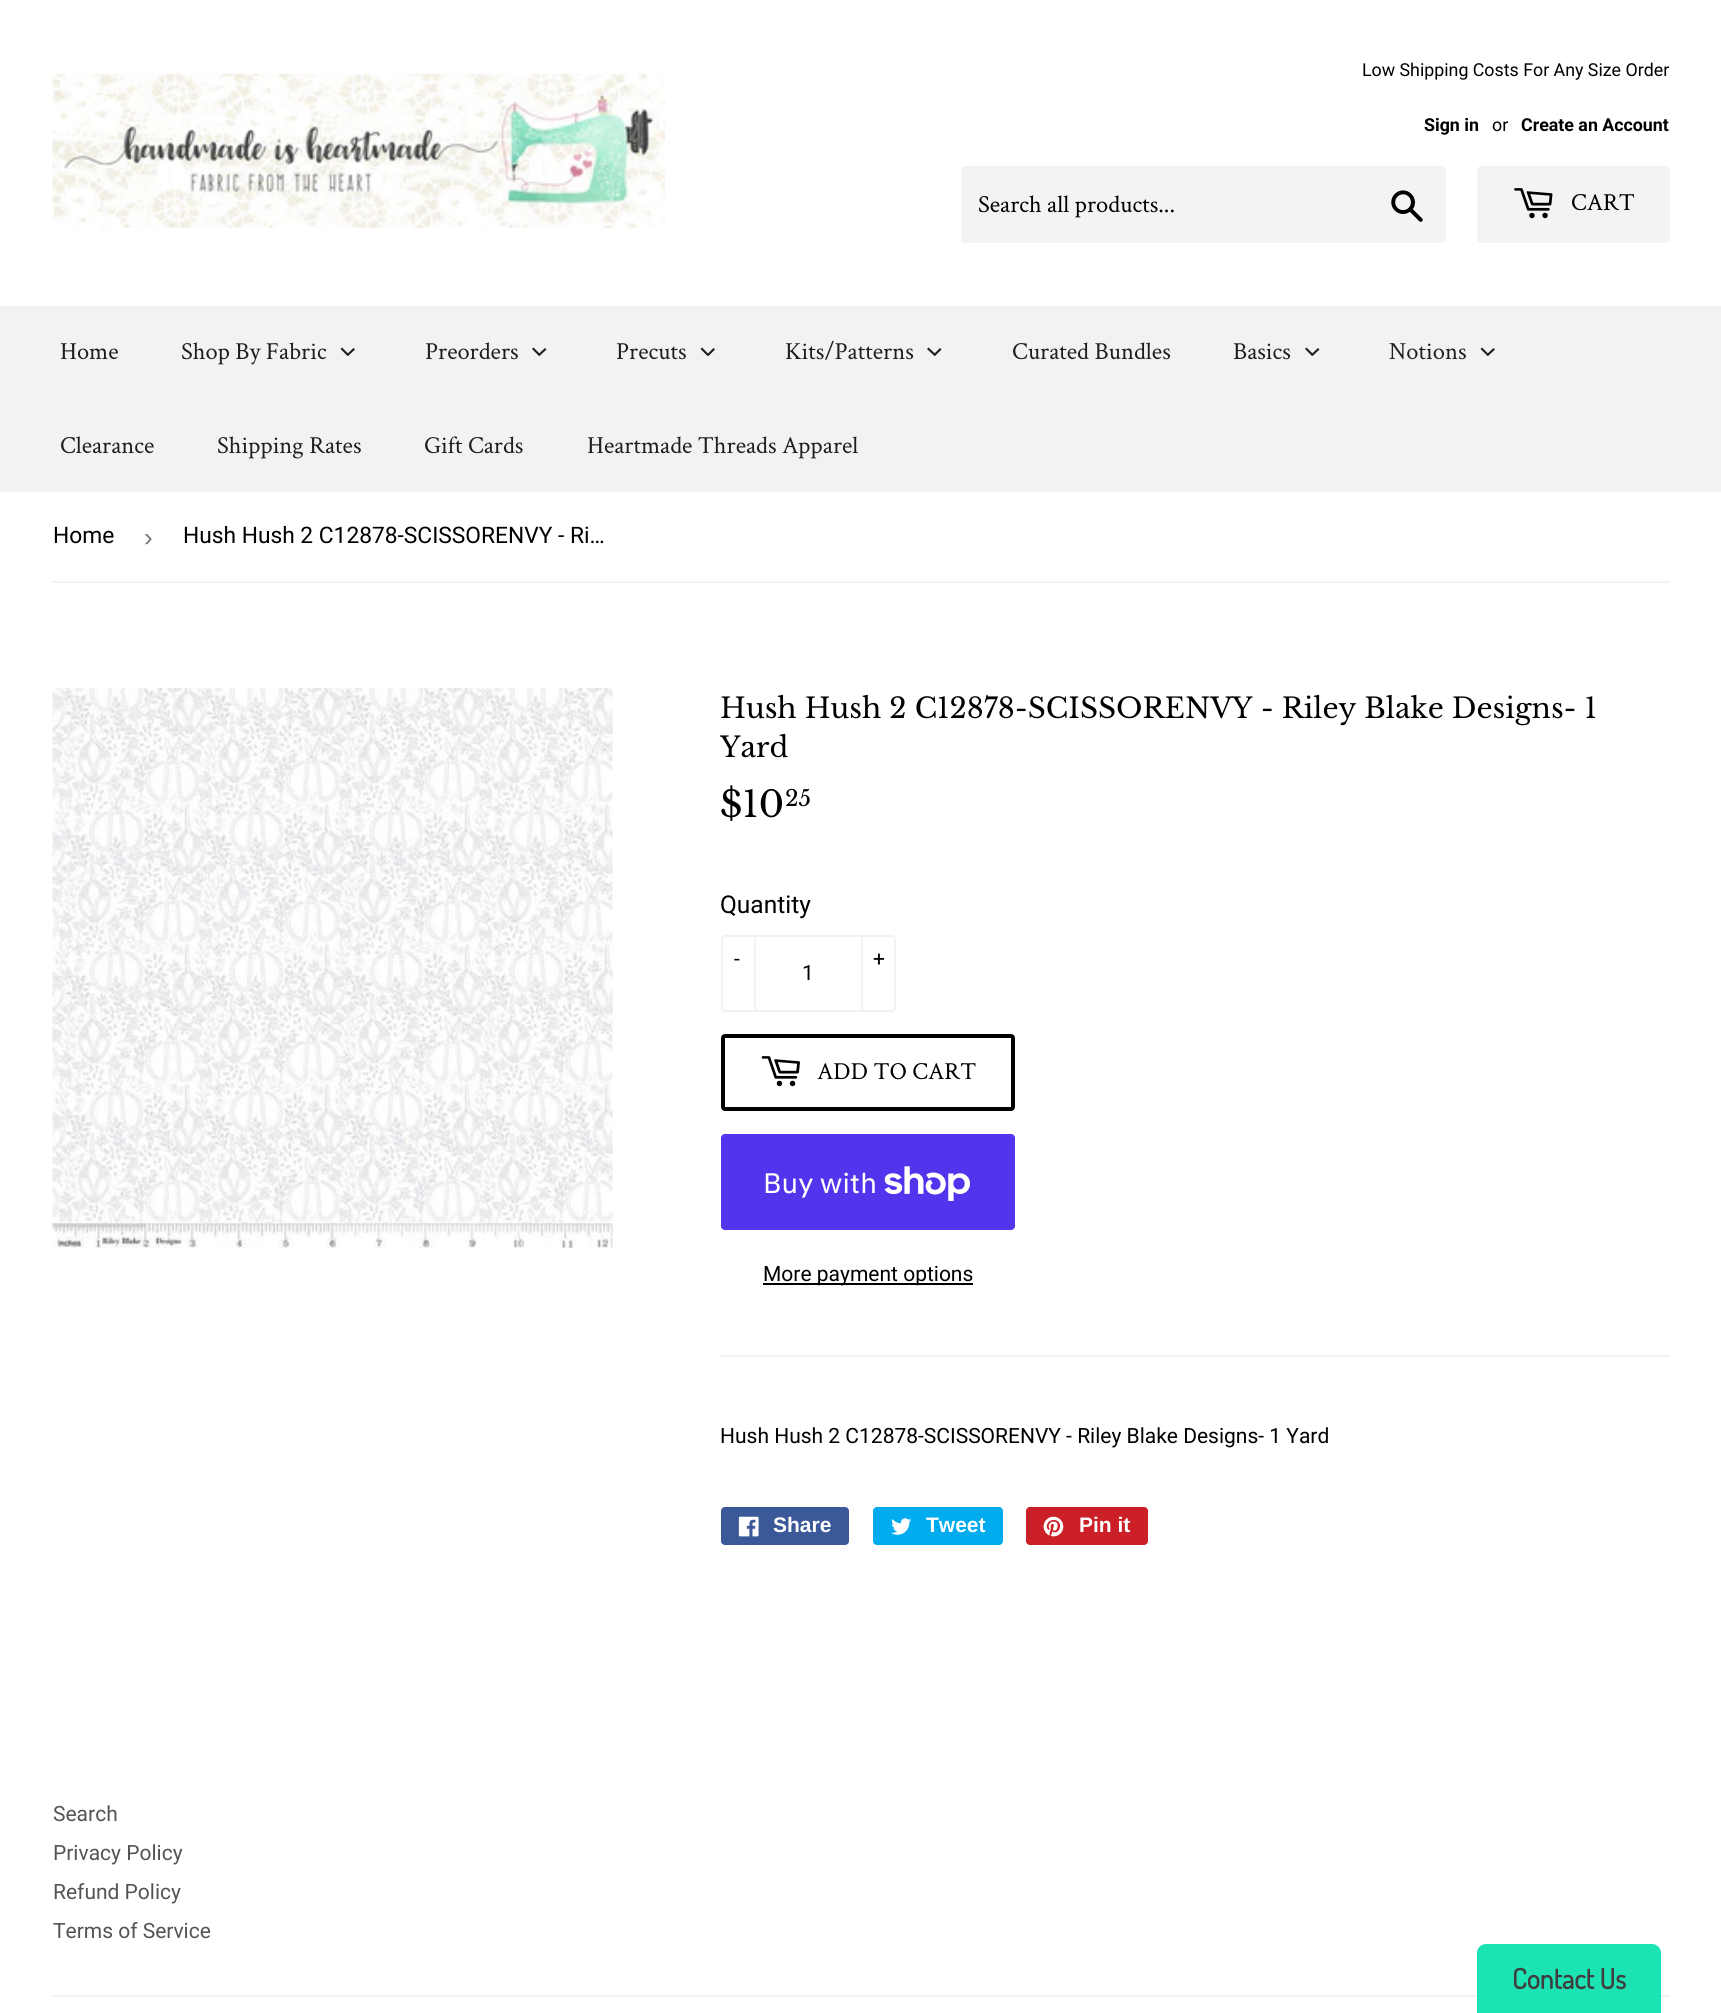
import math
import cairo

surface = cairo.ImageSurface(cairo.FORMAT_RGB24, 1721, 2013)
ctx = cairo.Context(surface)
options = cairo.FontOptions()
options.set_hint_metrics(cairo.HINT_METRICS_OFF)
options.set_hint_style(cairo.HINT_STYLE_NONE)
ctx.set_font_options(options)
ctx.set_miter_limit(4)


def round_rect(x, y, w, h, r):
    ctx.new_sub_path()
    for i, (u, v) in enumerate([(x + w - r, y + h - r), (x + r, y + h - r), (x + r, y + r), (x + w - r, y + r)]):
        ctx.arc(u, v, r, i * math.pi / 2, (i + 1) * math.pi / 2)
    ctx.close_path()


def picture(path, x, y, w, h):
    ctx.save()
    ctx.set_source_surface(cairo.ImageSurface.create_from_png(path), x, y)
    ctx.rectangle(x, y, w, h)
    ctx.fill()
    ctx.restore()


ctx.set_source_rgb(1, 1, 1)
ctx.paint()
picture("img1.png", 52, 73, 613, 155)
ctx.select_font_face("Roboto")
ctx.set_font_size(17.8)
ctx.set_source_rgb(0, 0, 0)
ctx.move_to(1362, 76)
ctx.show_text("Low Shipping Costs For Any Size Order")
ctx.select_font_face("Roboto", cairo.FONT_SLANT_NORMAL, cairo.FONT_WEIGHT_BOLD)
ctx.move_to(1424, 131)
ctx.show_text("Sign in")
ctx.select_font_face("Roboto")
ctx.move_to(1492, 131)
ctx.show_text("or")
ctx.select_font_face("Roboto", cairo.FONT_SLANT_NORMAL, cairo.FONT_WEIGHT_BOLD)
ctx.move_to(1521, 131)
ctx.show_text("Create an Account")
ctx.set_source_rgb(0.953, 0.953, 0.953)
round_rect(961, 166, 485, 77, 4)
ctx.fill()
ctx.select_font_face("Crimson Text")
ctx.set_font_size(24.5)
ctx.set_source_rgb(0, 0, 0)
ctx.move_to(978, 212)
ctx.show_text("Search all products...")
picture("img2.png", 1391, 190, 32, 32)
ctx.set_source_rgb(0.953, 0.953, 0.953)
round_rect(1477, 166, 193, 77, 4)
ctx.fill()
picture("img3.png", 1514, 188, 39, 31)
ctx.set_source_rgb(0, 0, 0)
ctx.move_to(1571, 210)
ctx.show_text("CART")
ctx.set_source_rgb(0.949, 0.949, 0.949)
ctx.rectangle(0, 306, 1721, 186)
ctx.fill()
ctx.set_source_rgb(0.129, 0.114, 0.114)
ctx.move_to(60, 359)
ctx.show_text("Home")
ctx.move_to(181, 359)
ctx.show_text("Shop By Fabric")
ctx.new_path()
ctx.move_to(353.5, 348)
ctx.line_to(355, 349.5)
ctx.line_to(348, 356)
ctx.line_to(346.5, 354.5)
ctx.close_path()
ctx.fill()
ctx.new_path()
ctx.move_to(342, 347.5)
ctx.line_to(349, 354.5)
ctx.line_to(347.5, 356)
ctx.line_to(340.5, 349)
ctx.close_path()
ctx.fill()
ctx.move_to(425, 359)
ctx.show_text("Preorders")
ctx.new_path()
ctx.move_to(545, 348)
ctx.line_to(546.5, 349.5)
ctx.line_to(539.5, 356)
ctx.line_to(538, 354.5)
ctx.close_path()
ctx.fill()
ctx.new_path()
ctx.move_to(533.5, 347.5)
ctx.line_to(540.5, 354.5)
ctx.line_to(539, 356)
ctx.line_to(532, 349)
ctx.close_path()
ctx.fill()
ctx.move_to(616, 359)
ctx.show_text("Precuts")
ctx.new_path()
ctx.move_to(713.5, 348)
ctx.line_to(715, 349.5)
ctx.line_to(708.5, 356)
ctx.line_to(707, 354.5)
ctx.close_path()
ctx.fill()
ctx.new_path()
ctx.move_to(702, 347.5)
ctx.line_to(709, 354.5)
ctx.line_to(707.5, 356)
ctx.line_to(700.5, 349)
ctx.close_path()
ctx.fill()
ctx.move_to(785, 359)
ctx.show_text("Kits/Patterns")
ctx.new_path()
ctx.move_to(940, 348)
ctx.line_to(941.5, 349.5)
ctx.line_to(935, 356)
ctx.line_to(933.5, 354.5)
ctx.close_path()
ctx.fill()
ctx.new_path()
ctx.move_to(928.5, 347.5)
ctx.line_to(936, 354.5)
ctx.line_to(934.5, 356)
ctx.line_to(927, 349)
ctx.close_path()
ctx.fill()
ctx.move_to(1012, 359)
ctx.show_text("Curated Bundles")
ctx.move_to(1233, 359)
ctx.show_text("Basics")
ctx.new_path()
ctx.move_to(1318, 348)
ctx.line_to(1319.5, 349.5)
ctx.line_to(1312.5, 356)
ctx.line_to(1311, 354.5)
ctx.close_path()
ctx.fill()
ctx.new_path()
ctx.move_to(1306.5, 347.5)
ctx.line_to(1313.5, 354.5)
ctx.line_to(1312, 356)
ctx.line_to(1305, 349)
ctx.close_path()
ctx.fill()
ctx.move_to(1389, 359)
ctx.show_text("Notions")
ctx.new_path()
ctx.move_to(1493.5, 348)
ctx.line_to(1495, 349.5)
ctx.line_to(1488, 356)
ctx.line_to(1486.5, 354.5)
ctx.close_path()
ctx.fill()
ctx.new_path()
ctx.move_to(1482, 347.5)
ctx.line_to(1489, 354.5)
ctx.line_to(1487.5, 356)
ctx.line_to(1480.5, 349)
ctx.close_path()
ctx.fill()
ctx.move_to(60, 453)
ctx.show_text("Clearance")
ctx.move_to(217, 453)
ctx.show_text("Shipping Rates")
ctx.move_to(424, 453)
ctx.show_text("Gift Cards")
ctx.move_to(587, 453)
ctx.show_text("Heartmade Threads Apparel")
ctx.set_source_rgb(0.949, 0.949, 0.949)
ctx.rectangle(53, 581, 1617, 2)
ctx.fill()
ctx.select_font_face("Roboto")
ctx.set_font_size(22.75)
ctx.set_source_rgb(0, 0, 0)
ctx.move_to(53, 543)
ctx.show_text("Home")
ctx.select_font_face("Liberation Sans")
ctx.set_font_size(26)
ctx.set_source_rgb(0.463, 0.463, 0.463)
ctx.move_to(144, 546)
ctx.show_text("›")
ctx.select_font_face("Roboto")
ctx.set_font_size(22.75)
ctx.set_source_rgb(0, 0, 0)
ctx.move_to(183, 543)
ctx.show_text("Hush Hush 2 C12878-SCISSORENVY - Ri…")
picture("img4.png", 52, 688, 561, 560)
ctx.select_font_face("Libre Baskerville")
ctx.set_font_size(28)
ctx.move_to(720, 718)
ctx.show_text("Hush Hush 2 C12878-SCISSORENVY - Riley Blake Designs- 1")
ctx.move_to(720, 757)
ctx.show_text("Yard")
ctx.set_font_size(36)
ctx.move_to(720, 817)
ctx.show_text("$10")
ctx.set_font_size(22)
ctx.move_to(785, 806)
ctx.show_text("25")
ctx.select_font_face("Roboto")
ctx.set_font_size(24.5)
ctx.move_to(720, 913)
ctx.show_text("Quantity")
round_rect(722, 936, 173, 75, 3)
ctx.set_source_rgb(0.949, 0.949, 0.949)
ctx.stroke()
ctx.rectangle(754, 935, 2, 77)
ctx.fill()
ctx.set_font_size(21)
ctx.set_source_rgb(0, 0, 0)
ctx.move_to(734, 966)
ctx.show_text("-")
ctx.set_source_rgb(0.949, 0.949, 0.949)
ctx.rectangle(861, 935, 2, 77)
ctx.fill()
ctx.set_source_rgb(0, 0, 0)
ctx.move_to(873, 966)
ctx.show_text("+")
ctx.move_to(802, 980)
ctx.show_text("1")
round_rect(723, 1036, 290, 73, 2)
ctx.set_line_width(4)
ctx.stroke()
picture("img5.png", 761, 1056, 39, 31)
ctx.select_font_face("Crimson Text")
ctx.set_font_size(24.5)
ctx.move_to(817, 1079)
ctx.show_text("ADD TO CART")
ctx.set_source_rgb(0.329, 0.2, 0.922)
round_rect(721, 1134, 294, 96, 4)
ctx.fill()
ctx.select_font_face("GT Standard")
ctx.set_font_size(28)
ctx.set_source_rgb(1, 1, 1)
ctx.move_to(763, 1193)
ctx.show_text("Buy with")
picture("img6.png", 884, 1166, 86, 35)
ctx.set_source_rgb(0, 0, 0)
ctx.rectangle(763, 1283, 210, 2)
ctx.fill()
ctx.select_font_face("Roboto")
ctx.set_font_size(21)
ctx.move_to(763, 1281)
ctx.show_text("More payment options")
ctx.set_source_rgb(0.949, 0.949, 0.949)
ctx.rectangle(721, 1355, 949, 2)
ctx.fill()
ctx.set_source_rgb(0, 0, 0)
ctx.move_to(720, 1443)
ctx.show_text("Hush Hush 2 C12878-SCISSORENVY - Riley Blake Designs- 1 Yard")
ctx.set_source_rgb(0.231, 0.349, 0.596)
round_rect(721, 1507, 128, 38, 4)
ctx.fill()
picture("img7.png", 738, 1516, 21, 21)
ctx.select_font_face("Liberation Sans", cairo.FONT_SLANT_NORMAL, cairo.FONT_WEIGHT_BOLD)
ctx.set_source_rgb(1, 1, 1)
ctx.move_to(773, 1532)
ctx.show_text("Share")
ctx.set_source_rgb(0, 0.675, 0.929)
round_rect(873, 1507, 130, 38, 4)
ctx.fill()
picture("img8.png", 891, 1518, 21, 17)
ctx.set_source_rgb(1, 1, 1)
ctx.move_to(926, 1532)
ctx.show_text("Tweet")
ctx.set_source_rgb(0.796, 0.125, 0.153)
round_rect(1026, 1507, 122, 38, 4)
ctx.fill()
picture("img9.png", 1043, 1516, 21, 21)
ctx.set_source_rgb(1, 1, 1)
ctx.move_to(1079, 1532)
ctx.show_text("Pin it")
ctx.select_font_face("Roboto")
ctx.set_source_rgb(0.329, 0.329, 0.329)
ctx.move_to(53, 1821)
ctx.show_text("Search")
ctx.move_to(53, 1860)
ctx.show_text("Privacy Policy")
ctx.move_to(53, 1899)
ctx.show_text("Refund Policy")
ctx.move_to(53, 1938)
ctx.show_text("Terms of Service")
ctx.set_source_rgb(0.949, 0.949, 0.949)
ctx.rectangle(53, 1995, 1617, 2)
ctx.fill()
ctx.set_source_rgb(0.11, 0.89, 0.706)
ctx.new_path()
ctx.move_to(1486, 1944)
ctx.line_to(1652, 1944)
ctx.curve_to(1657, 1944, 1661, 1948, 1661, 1953)
ctx.line_to(1661, 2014)
ctx.line_to(1477, 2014)
ctx.line_to(1477, 1953)
ctx.curve_to(1477, 1948, 1481, 1944, 1486, 1944)
ctx.close_path()
ctx.fill()
ctx.select_font_face("Dosis", cairo.FONT_SLANT_NORMAL, cairo.FONT_WEIGHT_BOLD)
ctx.set_font_size(28)
ctx.set_source_rgb(0.243, 0.243, 0.243)
ctx.move_to(1512, 1989)
ctx.show_text("Contact Us")
surface.write_to_png("page.png")
